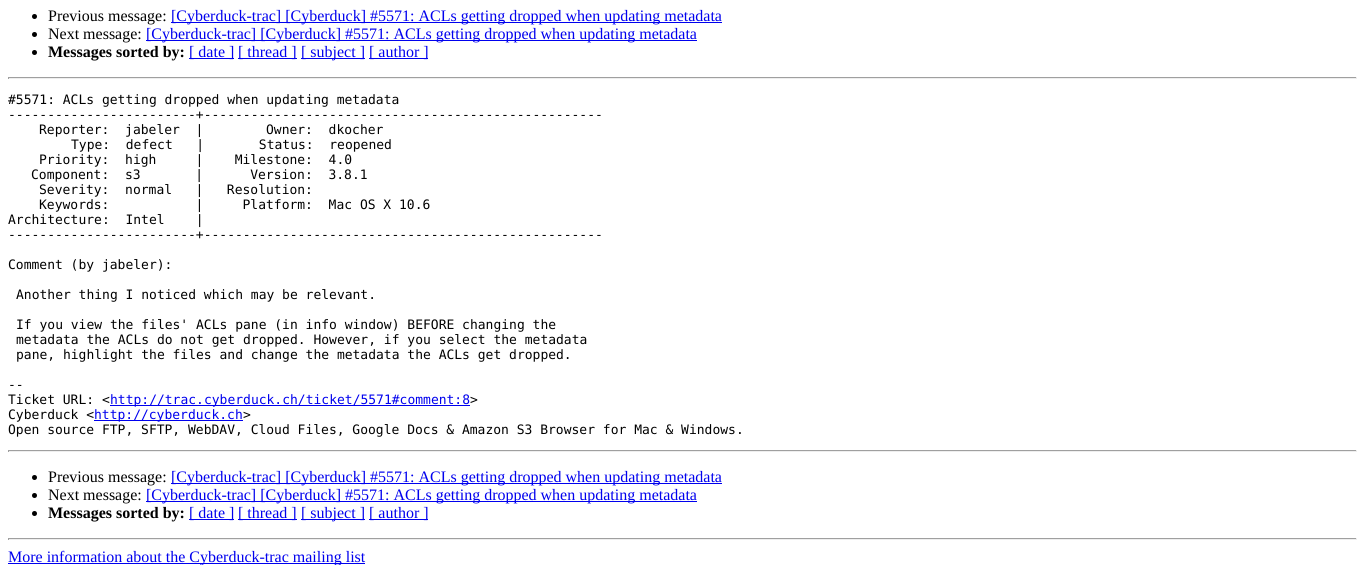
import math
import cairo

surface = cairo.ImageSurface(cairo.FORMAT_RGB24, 1365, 565)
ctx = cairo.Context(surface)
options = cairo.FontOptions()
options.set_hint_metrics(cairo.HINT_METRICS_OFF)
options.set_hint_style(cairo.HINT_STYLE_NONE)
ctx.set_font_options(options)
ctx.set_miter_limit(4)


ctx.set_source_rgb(1, 1, 1)
ctx.paint()
ctx.set_source_rgb(0, 0, 0)
ctx.arc(34.5, 16.5, 2.5, 0, 2 * math.pi)
ctx.fill()
ctx.select_font_face("Liberation Serif")
ctx.set_font_size(16)
ctx.move_to(48, 21)
ctx.show_text("Previous message:")
ctx.set_source_rgb(0, 0, 0.933)
ctx.rectangle(171, 22, 551, 1)
ctx.fill()
ctx.move_to(171, 21)
ctx.show_text("[Cyberduck-trac] [Cyberduck] #5571: ACLs getting dropped when updating metadata")
ctx.set_source_rgb(0, 0, 0)
ctx.new_path()
ctx.arc(34.5, 34.5, 2.5, 0, 2 * math.pi)
ctx.fill()
ctx.move_to(48, 39)
ctx.show_text("Next message:")
ctx.set_source_rgb(0, 0, 0.933)
ctx.rectangle(146, 40, 551, 1)
ctx.fill()
ctx.move_to(146, 39)
ctx.show_text("[Cyberduck-trac] [Cyberduck] #5571: ACLs getting dropped when updating metadata")
ctx.set_source_rgb(0, 0, 0)
ctx.new_path()
ctx.arc(34.5, 52.5, 2.5, 0, 2 * math.pi)
ctx.fill()
ctx.select_font_face("Liberation Serif", cairo.FONT_SLANT_NORMAL, cairo.FONT_WEIGHT_BOLD)
ctx.move_to(48, 57)
ctx.show_text("Messages sorted by:")
ctx.set_source_rgb(0, 0, 0.933)
ctx.rectangle(189, 58, 45, 1)
ctx.fill()
ctx.select_font_face("Liberation Serif")
ctx.move_to(189, 57)
ctx.show_text("[ date ]")
ctx.rectangle(238, 58, 59, 1)
ctx.fill()
ctx.move_to(238, 57)
ctx.show_text("[ thread ]")
ctx.rectangle(301, 58, 64, 1)
ctx.fill()
ctx.move_to(301, 57)
ctx.show_text("[ subject ]")
ctx.rectangle(369, 58, 59, 1)
ctx.fill()
ctx.move_to(369, 57)
ctx.show_text("[ author ]")
ctx.set_source_rgb(0.624, 0.624, 0.624)
ctx.rectangle(8, 77, 1349, 1)
ctx.fill()
ctx.set_source_rgb(0.933, 0.933, 0.933)
ctx.rectangle(1356, 77, 1, 2)
ctx.fill()
ctx.rectangle(8, 78, 1349, 1)
ctx.fill()
ctx.set_source_rgb(0.624, 0.624, 0.624)
ctx.rectangle(8, 77, 1, 2)
ctx.fill()
ctx.select_font_face("DejaVu Sans Mono")
ctx.set_font_size(13)
ctx.set_source_rgb(0, 0, 0)
ctx.move_to(8, 104)
ctx.show_text("#5571: ACLs getting dropped when updating metadata")
ctx.move_to(8, 119)
ctx.show_text("------------------------+---------------------------------------------------")
ctx.move_to(39, 134)
ctx.show_text("Reporter:  jabeler  |        Owner:  dkocher")
ctx.move_to(71, 149)
ctx.show_text("Type:  defect   |       Status:  reopened")
ctx.move_to(39, 164)
ctx.show_text("Priority:  high     |    Milestone:  4.0")
ctx.move_to(31, 179)
ctx.show_text("Component:  s3       |      Version:  3.8.1")
ctx.move_to(39, 194)
ctx.show_text("Severity:  normal   |   Resolution:")
ctx.move_to(39, 209)
ctx.show_text("Keywords:           |     Platform:  Mac OS X 10.6")
ctx.move_to(8, 224)
ctx.show_text("Architecture:  Intel    |")
ctx.move_to(8, 239)
ctx.show_text("------------------------+---------------------------------------------------")
ctx.move_to(8, 269)
ctx.show_text("Comment (by jabeler):")
ctx.move_to(16, 299)
ctx.show_text("Another thing I noticed which may be relevant.")
ctx.move_to(16, 329)
ctx.show_text("If you view the files' ACLs pane (in info window) BEFORE changing the")
ctx.move_to(16, 344)
ctx.show_text("metadata the ACLs do not get dropped. However, if you select the metadata")
ctx.move_to(16, 359)
ctx.show_text("pane, highlight the files and change the metadata the ACLs get dropped.")
ctx.move_to(8, 389)
ctx.show_text("--")
ctx.move_to(8, 404)
ctx.show_text("Ticket URL: <")
ctx.set_source_rgb(0, 0, 0.933)
ctx.rectangle(110, 405, 360, 1)
ctx.fill()
ctx.move_to(110, 404)
ctx.show_text("http://trac.cyberduck.ch/ticket/5571#comment:8")
ctx.set_source_rgb(0, 0, 0)
ctx.move_to(470, 404)
ctx.show_text(">")
ctx.move_to(8, 419)
ctx.show_text("Cyberduck <")
ctx.set_source_rgb(0, 0, 0.933)
ctx.rectangle(94, 420, 149, 1)
ctx.fill()
ctx.move_to(94, 419)
ctx.show_text("http://cyberduck.ch")
ctx.set_source_rgb(0, 0, 0)
ctx.move_to(243, 419)
ctx.show_text(">")
ctx.move_to(8, 434)
ctx.show_text("Open source FTP, SFTP, WebDAV, Cloud Files, Google Docs & Amazon S3 Browser for Mac & Windows.")
ctx.set_source_rgb(0.624, 0.624, 0.624)
ctx.rectangle(8, 450, 1349, 1)
ctx.fill()
ctx.set_source_rgb(0.933, 0.933, 0.933)
ctx.rectangle(1356, 450, 1, 2)
ctx.fill()
ctx.rectangle(8, 451, 1349, 1)
ctx.fill()
ctx.set_source_rgb(0.624, 0.624, 0.624)
ctx.rectangle(8, 450, 1, 2)
ctx.fill()
ctx.set_source_rgb(0, 0, 0)
ctx.arc(34.5, 477.5, 2.5, 0, 2 * math.pi)
ctx.fill()
ctx.select_font_face("Liberation Serif")
ctx.set_font_size(16)
ctx.move_to(48, 482)
ctx.show_text("Previous message:")
ctx.set_source_rgb(0, 0, 0.933)
ctx.rectangle(171, 483, 551, 1)
ctx.fill()
ctx.move_to(171, 482)
ctx.show_text("[Cyberduck-trac] [Cyberduck] #5571: ACLs getting dropped when updating metadata")
ctx.set_source_rgb(0, 0, 0)
ctx.new_path()
ctx.arc(34.5, 495.5, 2.5, 0, 2 * math.pi)
ctx.fill()
ctx.move_to(48, 500)
ctx.show_text("Next message:")
ctx.set_source_rgb(0, 0, 0.933)
ctx.rectangle(146, 501, 551, 1)
ctx.fill()
ctx.move_to(146, 500)
ctx.show_text("[Cyberduck-trac] [Cyberduck] #5571: ACLs getting dropped when updating metadata")
ctx.set_source_rgb(0, 0, 0)
ctx.new_path()
ctx.arc(34.5, 513.5, 2.5, 0, 2 * math.pi)
ctx.fill()
ctx.select_font_face("Liberation Serif", cairo.FONT_SLANT_NORMAL, cairo.FONT_WEIGHT_BOLD)
ctx.move_to(48, 518)
ctx.show_text("Messages sorted by:")
ctx.set_source_rgb(0, 0, 0.933)
ctx.rectangle(189, 519, 45, 1)
ctx.fill()
ctx.select_font_face("Liberation Serif")
ctx.move_to(189, 518)
ctx.show_text("[ date ]")
ctx.rectangle(238, 519, 59, 1)
ctx.fill()
ctx.move_to(238, 518)
ctx.show_text("[ thread ]")
ctx.rectangle(301, 519, 64, 1)
ctx.fill()
ctx.move_to(301, 518)
ctx.show_text("[ subject ]")
ctx.rectangle(369, 519, 59, 1)
ctx.fill()
ctx.move_to(369, 518)
ctx.show_text("[ author ]")
ctx.set_source_rgb(0.624, 0.624, 0.624)
ctx.rectangle(8, 538, 1349, 1)
ctx.fill()
ctx.set_source_rgb(0.933, 0.933, 0.933)
ctx.rectangle(1356, 538, 1, 2)
ctx.fill()
ctx.rectangle(8, 539, 1349, 1)
ctx.fill()
ctx.set_source_rgb(0.624, 0.624, 0.624)
ctx.rectangle(8, 538, 1, 2)
ctx.fill()
ctx.set_source_rgb(0, 0, 0.933)
ctx.rectangle(8, 563, 357, 1)
ctx.fill()
ctx.move_to(8, 562)
ctx.show_text("More information about the Cyberduck-trac mailing list")
surface.write_to_png("page.png")
